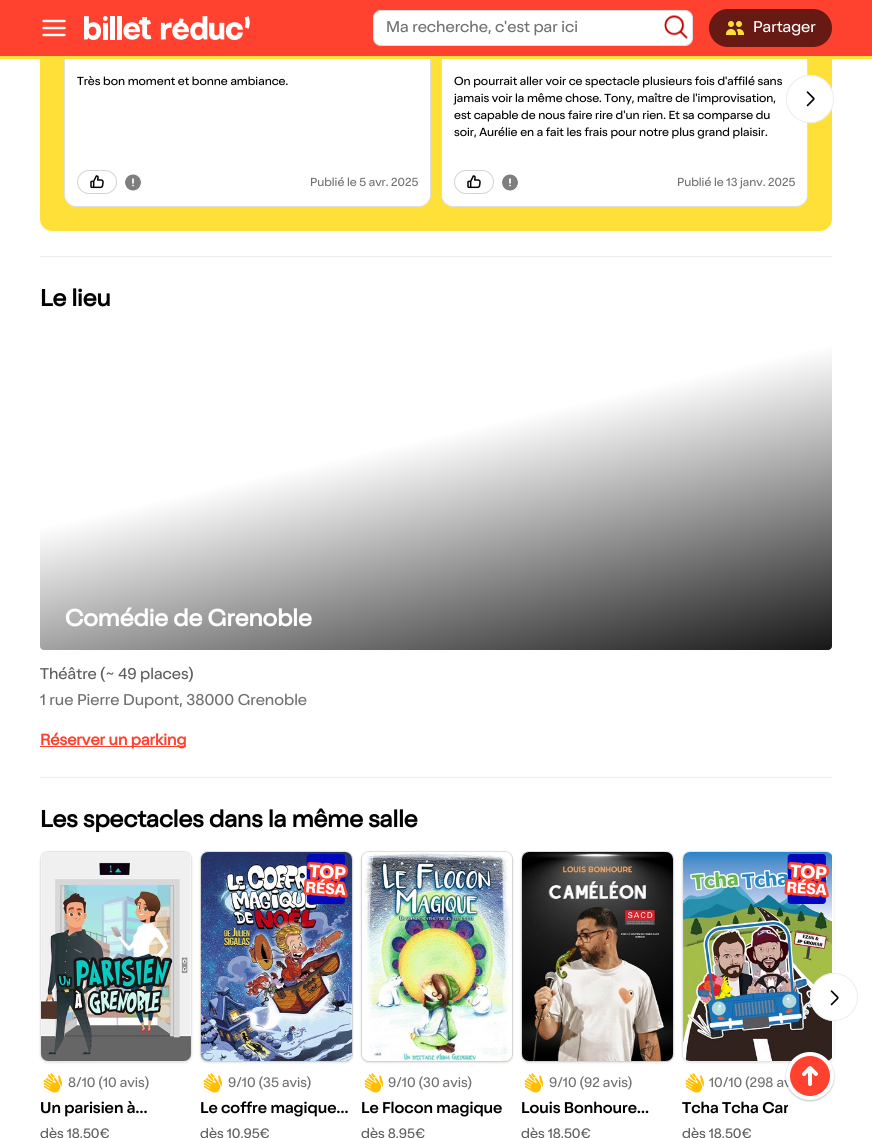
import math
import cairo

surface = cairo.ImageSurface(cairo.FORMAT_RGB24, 872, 1138)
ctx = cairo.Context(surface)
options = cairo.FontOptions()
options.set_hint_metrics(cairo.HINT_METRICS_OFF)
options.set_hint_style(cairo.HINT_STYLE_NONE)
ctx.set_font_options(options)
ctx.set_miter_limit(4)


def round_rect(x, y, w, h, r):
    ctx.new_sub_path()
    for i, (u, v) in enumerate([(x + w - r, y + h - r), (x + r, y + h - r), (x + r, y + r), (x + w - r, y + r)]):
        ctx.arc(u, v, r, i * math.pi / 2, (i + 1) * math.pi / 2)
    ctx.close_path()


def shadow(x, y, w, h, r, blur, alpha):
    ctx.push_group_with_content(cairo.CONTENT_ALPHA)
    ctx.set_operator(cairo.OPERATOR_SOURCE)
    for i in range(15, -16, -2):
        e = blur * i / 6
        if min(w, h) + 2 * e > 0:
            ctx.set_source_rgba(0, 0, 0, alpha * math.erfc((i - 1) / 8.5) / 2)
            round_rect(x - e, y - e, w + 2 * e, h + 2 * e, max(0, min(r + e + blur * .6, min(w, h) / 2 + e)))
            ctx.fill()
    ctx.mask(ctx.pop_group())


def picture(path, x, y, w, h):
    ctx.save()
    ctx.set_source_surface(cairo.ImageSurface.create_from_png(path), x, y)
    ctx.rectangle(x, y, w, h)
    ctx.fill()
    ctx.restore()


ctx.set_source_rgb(1, 1, 1)
ctx.paint()
ctx.set_source_rgb(1, 0.878, 0.224)
round_rect(40, -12, 792, 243, 12)
ctx.fill()
ctx.set_source_rgb(1, 1, 1)
round_rect(64.5, -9.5, 366, 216, 11.5)
ctx.fill_preserve()
ctx.set_source_rgb(0.867, 0.867, 0.867)
ctx.set_line_width(1)
ctx.stroke()
ctx.set_source_rgb(1, 1, 1)
round_rect(441.5, -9.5, 366, 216, 11.5)
ctx.fill_preserve()
ctx.set_source_rgb(0.867, 0.867, 0.867)
ctx.stroke()
ctx.set_source_rgb(1, 0.255, 0.188)
ctx.rectangle(0, 0, 872, 56)
ctx.fill()
ctx.set_source_rgb(1, 0.878, 0.224)
ctx.rectangle(0, 56, 872, 3)
ctx.fill()
picture("img1.png", 42, 19, 24, 18)
picture("img2.png", 84, 16, 166, 24)
ctx.set_source_rgb(1, 1, 1)
round_rect(373.5, 10.5, 319, 35, 7.5)
ctx.fill_preserve()
ctx.set_source_rgb(0.867, 0.867, 0.867)
ctx.stroke()
ctx.select_font_face("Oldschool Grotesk")
ctx.set_font_size(16)
ctx.set_source_rgb(0.443, 0.443, 0.443)
ctx.move_to(386, 32)
ctx.show_text("Ma recherche, c'est par ici")
picture("img3.png", 664, 14, 24, 25)
ctx.set_source_rgb(0.4, 0.102, 0.075)
round_rect(709, 9, 123, 38, 19)
ctx.fill()
picture("img4.png", 726, 21, 18, 14)
ctx.set_source_rgb(1, 1, 1)
ctx.move_to(753, 32)
ctx.show_text("Partager")
ctx.set_font_size(12)
ctx.set_source_rgb(0, 0, 0)
ctx.move_to(77, 85)
ctx.show_text("Très bon moment et bonne ambiance.")
round_rect(77.5, 170.5, 39, 23, 11.5)
ctx.set_source_rgb(0.827, 0.827, 0.827)
ctx.stroke()
picture("img5.png", 125, 174, 16, 17)
picture("img6.png", 90, 175, 14, 14)
ctx.set_source_rgb(0.443, 0.443, 0.443)
ctx.move_to(310, 186)
ctx.show_text("Publié le 5 avr. 2025")
ctx.set_source_rgb(0, 0, 0)
ctx.move_to(454, 85)
ctx.show_text("On pourrait aller voir ce spectacle plusieurs fois d'affilé sans")
ctx.move_to(454, 102)
ctx.show_text("jamais voir la même chose. Tony, maître de l'improvisation,")
ctx.move_to(454, 119)
ctx.show_text("est capable de nous faire rire d'un rien. Et sa comparse du")
ctx.move_to(454, 136)
ctx.show_text("soir, Aurélie en a fait les frais pour notre plus grand plaisir.")
round_rect(454.5, 170.5, 39, 23, 11.5)
ctx.set_source_rgb(0.827, 0.827, 0.827)
ctx.stroke()
picture("img5.png", 502, 174, 16, 17)
picture("img6.png", 467, 175, 14, 14)
ctx.set_source_rgb(0.443, 0.443, 0.443)
ctx.move_to(677, 186)
ctx.show_text("Publié le 13 janv. 2025")
ctx.set_source_rgb(1, 1, 1)
ctx.new_path()
ctx.arc(810, 99, 24, 0, 2 * math.pi)
ctx.fill()
picture("img7.png", 806, 91, 9, 16)
ctx.arc(810, 99, 23.5, 0, 2 * math.pi)
ctx.set_source_rgb(0.922, 0.922, 0.922)
ctx.stroke()
ctx.rectangle(40, 256, 792, 1)
ctx.fill()
ctx.select_font_face("Oldschool Grotesk", cairo.FONT_SLANT_NORMAL, cairo.FONT_WEIGHT_BOLD)
ctx.set_font_size(24)
ctx.set_source_rgb(0, 0, 0)
ctx.move_to(40, 306)
ctx.show_text("Le lieu")
gradient = cairo.LinearGradient(381, 251, 498, 757)
gradient.add_color_stop_rgba(0.37, 1, 1, 1, 1)
gradient.add_color_stop_rgba(1, 0, 0, 0, 1)
ctx.set_source(gradient)
round_rect(40, 330, 792, 320, 4)
ctx.fill()
ctx.set_source_rgb(1, 1, 1)
ctx.move_to(65, 626)
ctx.show_text("Comédie de Grenoble")
ctx.select_font_face("Oldschool Grotesk")
ctx.set_font_size(16)
ctx.set_source_rgb(0.369, 0.369, 0.369)
ctx.move_to(40, 679)
ctx.show_text("Théâtre (~ 49 places)")
ctx.set_source_rgb(0.443, 0.443, 0.443)
ctx.move_to(40, 705)
ctx.show_text("1 rue Pierre Dupont, 38000 Grenoble")
ctx.set_source_rgb(1, 0.255, 0.188)
ctx.rectangle(40, 746, 146, 1)
ctx.fill()
ctx.select_font_face("Oldschool Grotesk", cairo.FONT_SLANT_NORMAL, cairo.FONT_WEIGHT_BOLD)
ctx.move_to(40, 745)
ctx.show_text("Réserver un parking")
ctx.set_source_rgb(0.922, 0.922, 0.922)
ctx.rectangle(40, 777, 792, 1)
ctx.fill()
ctx.set_font_size(24)
ctx.set_source_rgb(0, 0, 0)
ctx.move_to(40, 827)
ctx.show_text("Les spectacles dans la même salle")
ctx.save()
ctx.set_fill_rule(cairo.FILL_RULE_EVEN_ODD)
ctx.new_path()
ctx.move_to(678, 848)
ctx.line_to(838, 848)
ctx.line_to(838, 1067)
ctx.line_to(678, 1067)
ctx.close_path()
ctx.move_to(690, 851)
ctx.line_to(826, 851)
ctx.curve_to(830.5, 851, 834, 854.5, 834, 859)
ctx.line_to(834, 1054)
ctx.curve_to(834, 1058.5, 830.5, 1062, 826, 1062)
ctx.line_to(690, 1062)
ctx.curve_to(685.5, 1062, 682, 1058.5, 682, 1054)
ctx.line_to(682, 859)
ctx.curve_to(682, 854.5, 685.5, 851, 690, 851)
ctx.close_path()
ctx.clip()
ctx.set_source_rgb(0, 0, 0)
shadow(682, 852, 152, 211, 8, 1, 0.1)
ctx.restore()
ctx.save()
ctx.rectangle(40, 851, 792, 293)
ctx.clip()
round_rect(682.5, 851.5, 151, 210, 7.5)
ctx.set_source_rgba(0, 0, 0, 0.1)
ctx.stroke()
ctx.restore()
picture("img14.png", 683, 852, 149, 209)
ctx.set_source_rgb(1, 1, 1)
ctx.arc(834, 997, 24, 0, 2 * math.pi)
ctx.fill()
picture("img7.png", 830, 990, 9, 16)
ctx.arc(834, 997, 23.5, 0, 2 * math.pi)
ctx.set_source_rgb(0.922, 0.922, 0.922)
ctx.stroke()
ctx.save()
ctx.set_fill_rule(cairo.FILL_RULE_EVEN_ODD)
ctx.new_path()
ctx.move_to(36, 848)
ctx.line_to(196, 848)
ctx.line_to(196, 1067)
ctx.line_to(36, 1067)
ctx.close_path()
ctx.move_to(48, 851)
ctx.line_to(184, 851)
ctx.curve_to(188.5, 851, 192, 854.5, 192, 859)
ctx.line_to(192, 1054)
ctx.curve_to(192, 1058.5, 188.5, 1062, 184, 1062)
ctx.line_to(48, 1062)
ctx.curve_to(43.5, 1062, 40, 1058.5, 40, 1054)
ctx.line_to(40, 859)
ctx.curve_to(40, 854.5, 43.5, 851, 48, 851)
ctx.close_path()
ctx.clip()
ctx.set_source_rgb(0, 0, 0)
shadow(40, 852, 152, 211, 8, 1, 0.1)
ctx.restore()
round_rect(40.5, 851.5, 151, 210, 7.5)
ctx.set_source_rgba(0, 0, 0, 0.1)
ctx.stroke()
picture("img8.png", 41, 852, 150, 209)
picture("img9.png", 43, 1073, 19, 20)
ctx.select_font_face("Oldschool Grotesk")
ctx.set_font_size(14)
ctx.set_source_rgb(0.443, 0.443, 0.443)
ctx.move_to(68, 1087)
ctx.show_text("8/10 (10 avis)")
ctx.select_font_face("Oldschool Grotesk Medium")
ctx.set_font_size(16)
ctx.set_source_rgb(0, 0, 0)
ctx.move_to(40, 1113)
ctx.show_text("Un parisien à…")
ctx.select_font_face("Oldschool Grotesk")
ctx.set_font_size(14)
ctx.set_source_rgb(0.369, 0.369, 0.369)
ctx.move_to(40, 1138)
ctx.show_text("dès 18,50€")
ctx.set_source_rgb(0, 0, 0)
shadow(200, 852, 153, 211, 8, 1, 0.1)
round_rect(200.5, 851.5, 152, 210, 7.5)
ctx.set_source_rgba(0, 0, 0, 0.1)
ctx.stroke()
picture("img10.png", 201, 852, 151, 209)
picture("img11.png", 303, 854, 46, 50)
picture("img9.png", 203, 1073, 19, 20)
ctx.set_source_rgb(0.443, 0.443, 0.443)
ctx.move_to(228, 1087)
ctx.show_text("9/10 (35 avis)")
ctx.select_font_face("Oldschool Grotesk Medium")
ctx.set_font_size(16)
ctx.set_source_rgb(0, 0, 0)
ctx.move_to(200, 1113)
ctx.show_text("Le coffre magique…")
ctx.select_font_face("Oldschool Grotesk")
ctx.set_font_size(14)
ctx.set_source_rgb(0.369, 0.369, 0.369)
ctx.move_to(200, 1138)
ctx.show_text("dès 10,95€")
ctx.set_source_rgb(0, 0, 0)
shadow(361, 852, 152, 211, 8, 1, 0.1)
round_rect(361.5, 851.5, 151, 210, 7.5)
ctx.set_source_rgba(0, 0, 0, 0.1)
ctx.stroke()
picture("img12.png", 362, 852, 150, 209)
picture("img9.png", 364, 1073, 19, 20)
ctx.set_source_rgb(0.443, 0.443, 0.443)
ctx.move_to(388, 1087)
ctx.show_text("9/10 (30 avis)")
ctx.select_font_face("Oldschool Grotesk Medium")
ctx.set_font_size(16)
ctx.set_source_rgb(0, 0, 0)
ctx.move_to(361, 1113)
ctx.show_text("Le Flocon magique")
ctx.select_font_face("Oldschool Grotesk")
ctx.set_font_size(14)
ctx.set_source_rgb(0.369, 0.369, 0.369)
ctx.move_to(361, 1138)
ctx.show_text("dès 8,95€")
ctx.set_source_rgb(0, 0, 0)
shadow(521, 852, 153, 211, 8, 1, 0.1)
round_rect(521.5, 851.5, 152, 210, 7.5)
ctx.set_source_rgba(0, 0, 0, 0.1)
ctx.stroke()
picture("img13.png", 522, 852, 151, 209)
picture("img9.png", 524, 1073, 19, 20)
ctx.set_source_rgb(0.443, 0.443, 0.443)
ctx.move_to(549, 1087)
ctx.show_text("9/10 (92 avis)")
ctx.select_font_face("Oldschool Grotesk Medium")
ctx.set_font_size(16)
ctx.set_source_rgb(0, 0, 0)
ctx.move_to(521, 1113)
ctx.show_text("Louis Bonhoure…")
ctx.select_font_face("Oldschool Grotesk")
ctx.set_font_size(14)
ctx.set_source_rgb(0.369, 0.369, 0.369)
ctx.move_to(521, 1138)
ctx.show_text("dès 18,50€")
picture("img15.png", 784, 854, 46, 50)
picture("img9.png", 685, 1073, 19, 20)
ctx.set_source_rgb(0.443, 0.443, 0.443)
ctx.move_to(709, 1087)
ctx.show_text("10/10 (298 av")
ctx.save()
ctx.rectangle(682, 1098, 106, 22)
ctx.clip()
ctx.select_font_face("Oldschool Grotesk Medium")
ctx.set_font_size(16)
ctx.set_source_rgb(0, 0, 0)
ctx.move_to(682, 1113)
ctx.show_text("Tcha Tcha Car")
ctx.restore()
ctx.set_source_rgb(0.369, 0.369, 0.369)
ctx.move_to(682, 1138)
ctx.show_text("dès 18,50€")
ctx.set_source_rgb(0, 0, 0)
shadow(786, 1053, 48, 48, 24, 1, 0.25)
ctx.set_source_rgb(1, 1, 1)
ctx.arc(810, 1076, 24, 0, 2 * math.pi)
ctx.fill()
picture("img16.png", 790, 1056, 40, 40)
surface.write_to_png("page.png")
